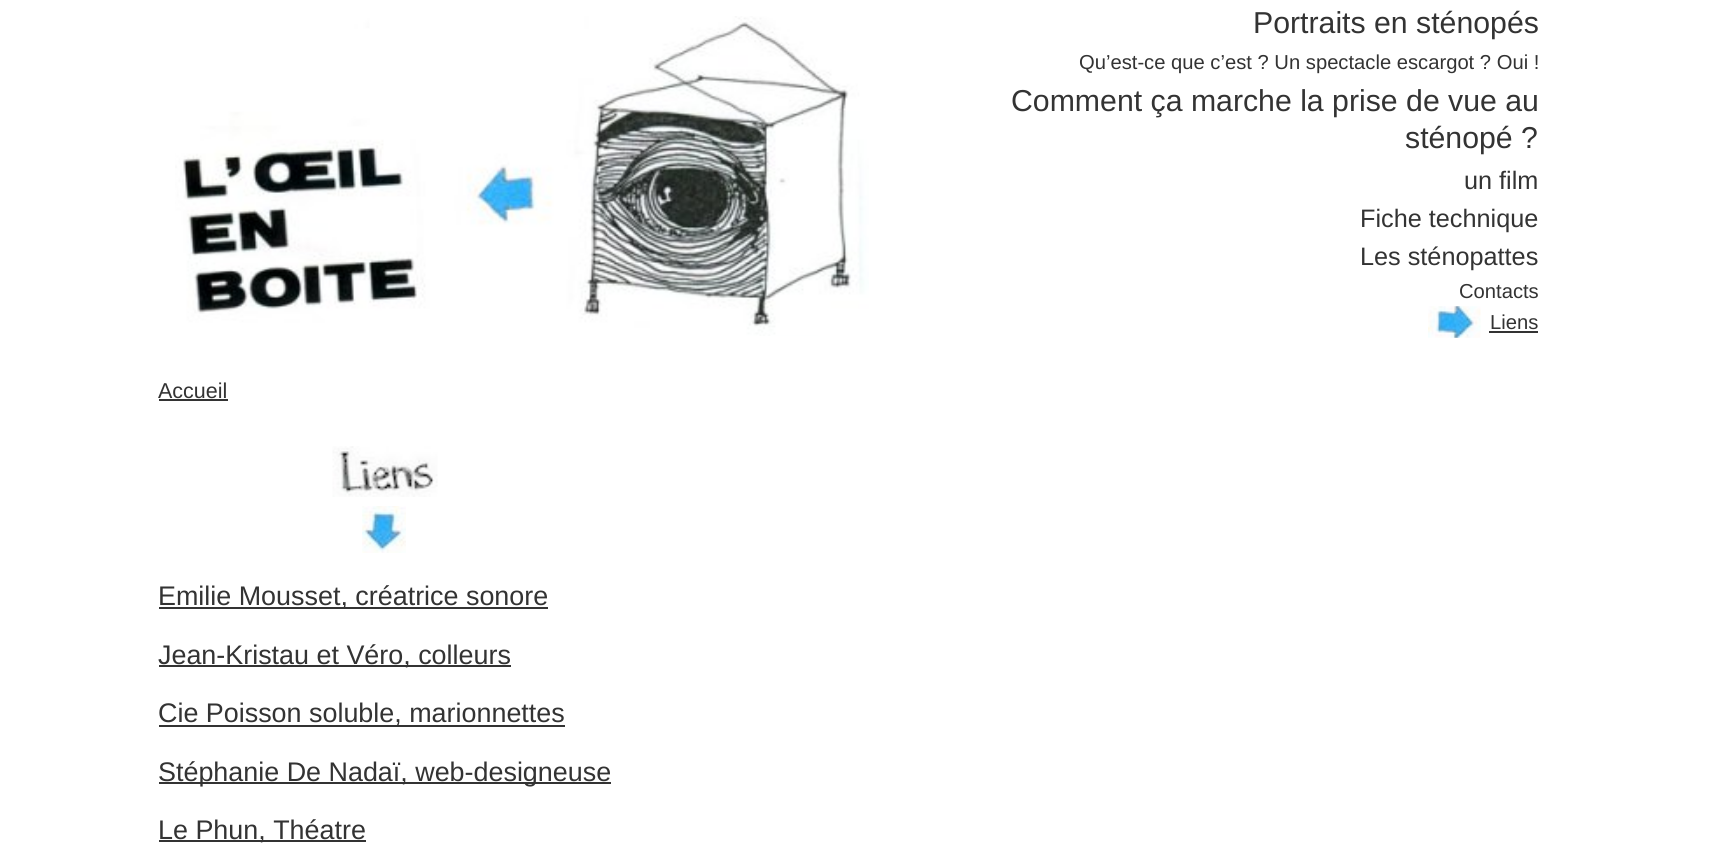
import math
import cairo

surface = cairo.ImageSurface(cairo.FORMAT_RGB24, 1716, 863)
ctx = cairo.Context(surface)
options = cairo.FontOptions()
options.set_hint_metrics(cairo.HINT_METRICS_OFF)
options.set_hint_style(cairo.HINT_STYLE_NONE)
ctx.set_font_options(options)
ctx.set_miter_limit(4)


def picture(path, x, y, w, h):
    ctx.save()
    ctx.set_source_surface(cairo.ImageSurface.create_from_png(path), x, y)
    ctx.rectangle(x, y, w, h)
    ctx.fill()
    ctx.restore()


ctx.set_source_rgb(1, 1, 1)
ctx.paint()
picture("img1.png", 175, 16, 694, 320)
ctx.select_font_face("Liberation Sans")
ctx.set_font_size(30.25)
ctx.set_source_rgb(0.2, 0.2, 0.2)
ctx.move_to(1253, 33)
ctx.show_text("Portraits en sténopés")
ctx.set_font_size(20.2)
ctx.move_to(1079, 69)
ctx.show_text("Qu’est-ce que c’est ? Un spectacle escargot ? Oui !")
ctx.set_font_size(30.25)
ctx.move_to(1011, 111)
ctx.show_text("Comment ça marche la prise de vue au")
ctx.move_to(1405, 148)
ctx.show_text("sténopé ?")
ctx.set_font_size(25.25)
ctx.move_to(1464, 189)
ctx.show_text("un film")
ctx.move_to(1360, 227)
ctx.show_text("Fiche technique")
ctx.move_to(1360, 265)
ctx.show_text("Les sténopattes")
ctx.set_font_size(20.2)
ctx.move_to(1459, 298)
ctx.show_text("Contacts")
picture("img2.png", 1428, 306, 53, 32)
ctx.move_to(1490, 329)
ctx.show_text("Liens")
ctx.rectangle(1489, 331, 49, 2)
ctx.fill()
ctx.set_font_size(21.5)
ctx.move_to(158, 398)
ctx.show_text("Accueil")
ctx.rectangle(159, 399, 69, 2)
ctx.fill()
picture("img3.png", 362, 506, 44, 47)
picture("img4.png", 332, 446, 106, 51)
ctx.rectangle(159, 607, 389, 2)
ctx.fill()
ctx.set_font_size(26.9)
ctx.move_to(158, 605)
ctx.show_text("Emilie Mousset, créatrice sonore")
ctx.rectangle(159, 665, 352, 2)
ctx.fill()
ctx.move_to(158, 664)
ctx.show_text("Jean-Kristau et Véro, colleurs")
ctx.rectangle(159, 725, 406, 2)
ctx.fill()
ctx.move_to(158, 722)
ctx.show_text("Cie Poisson soluble, marionnettes")
ctx.rectangle(159, 782, 452, 2)
ctx.fill()
ctx.move_to(158, 781)
ctx.show_text("Stéphanie De Nadaï, web-designeuse")
ctx.rectangle(159, 840, 207, 2)
ctx.fill()
ctx.move_to(158, 839)
ctx.show_text("Le Phun, Théatre")
surface.write_to_png("page.png")
